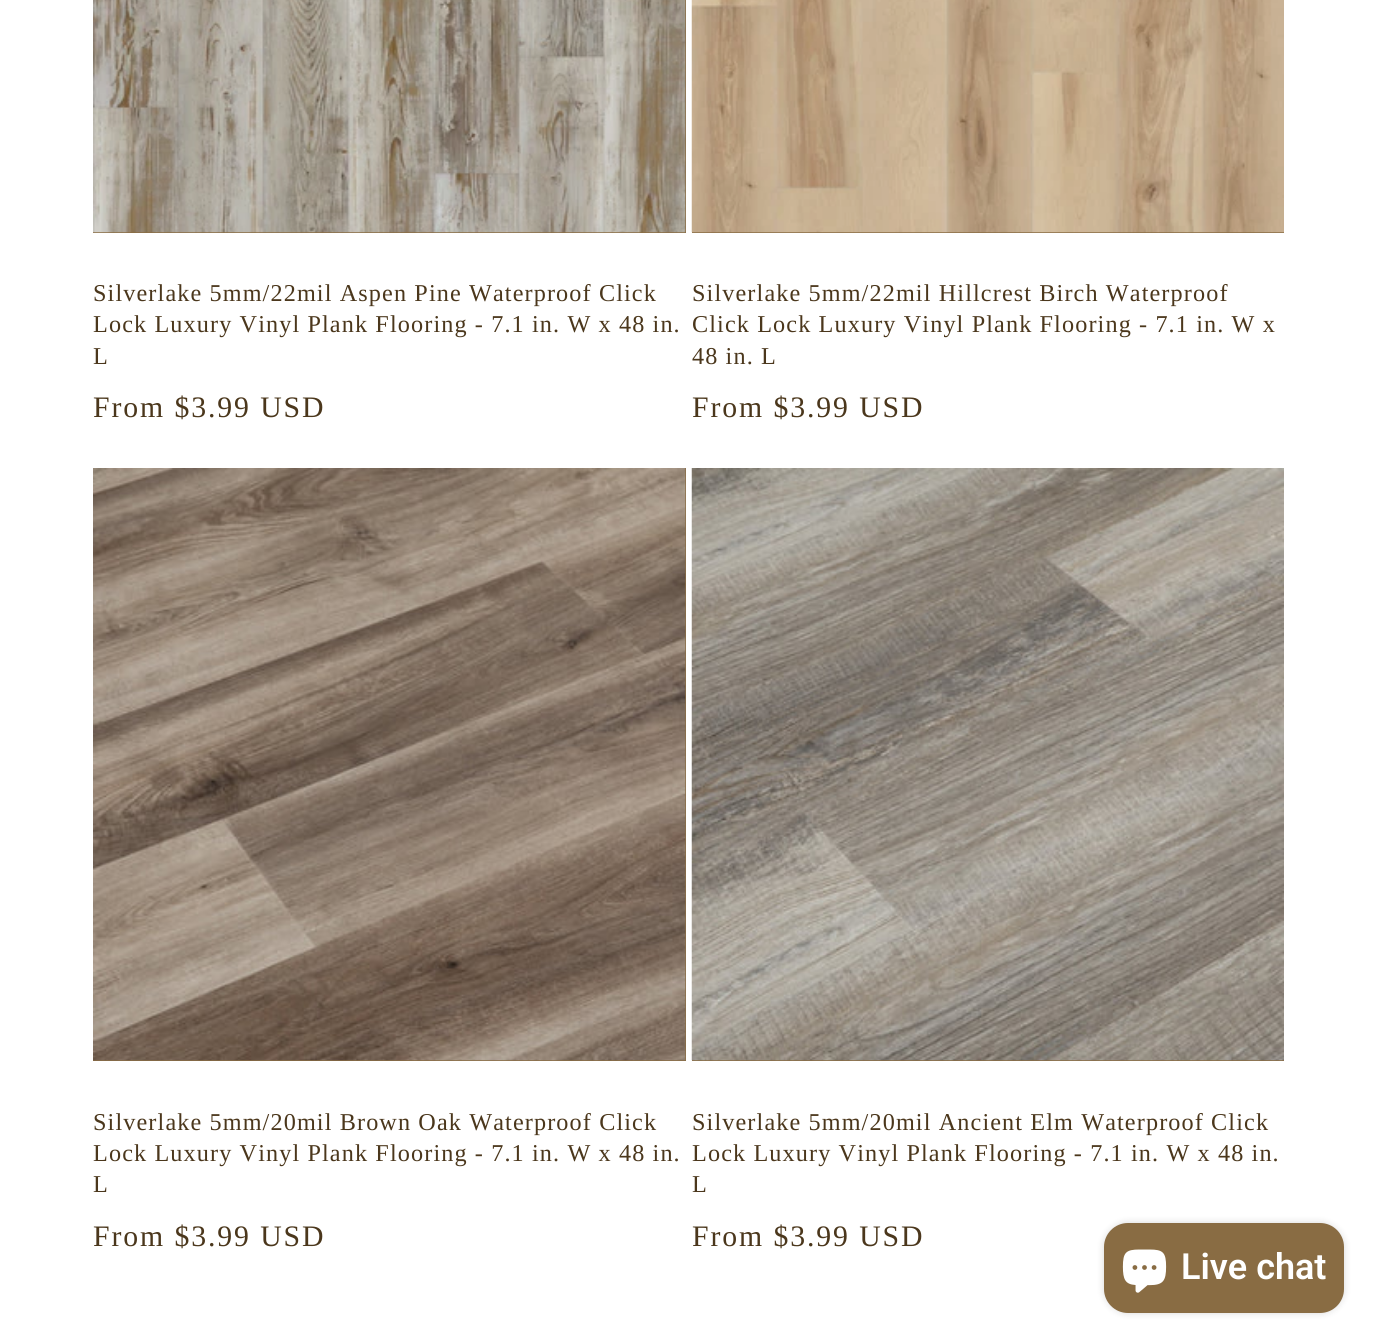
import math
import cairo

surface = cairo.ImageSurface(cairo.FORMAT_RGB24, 1376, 1344)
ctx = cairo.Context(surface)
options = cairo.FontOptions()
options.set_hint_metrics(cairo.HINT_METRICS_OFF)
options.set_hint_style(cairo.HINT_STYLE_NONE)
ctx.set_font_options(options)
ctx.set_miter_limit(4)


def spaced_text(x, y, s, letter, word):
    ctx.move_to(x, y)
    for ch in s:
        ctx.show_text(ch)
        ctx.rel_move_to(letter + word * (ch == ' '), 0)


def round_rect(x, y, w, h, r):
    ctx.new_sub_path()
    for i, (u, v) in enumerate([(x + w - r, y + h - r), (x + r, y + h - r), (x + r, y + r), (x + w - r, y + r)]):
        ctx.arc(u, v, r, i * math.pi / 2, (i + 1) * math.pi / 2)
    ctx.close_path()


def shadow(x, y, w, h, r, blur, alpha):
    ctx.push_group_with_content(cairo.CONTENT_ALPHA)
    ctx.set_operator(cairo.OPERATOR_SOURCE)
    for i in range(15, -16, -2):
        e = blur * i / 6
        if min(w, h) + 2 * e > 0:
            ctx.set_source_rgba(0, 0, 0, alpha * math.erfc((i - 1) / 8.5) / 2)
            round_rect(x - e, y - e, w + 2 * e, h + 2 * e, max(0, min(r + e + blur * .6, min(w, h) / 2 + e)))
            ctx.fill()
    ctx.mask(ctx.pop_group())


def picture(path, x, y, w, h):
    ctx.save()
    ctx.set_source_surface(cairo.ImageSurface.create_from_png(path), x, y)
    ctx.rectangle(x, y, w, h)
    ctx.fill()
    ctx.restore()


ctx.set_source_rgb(1, 1, 1)
ctx.paint()
ctx.set_source_rgb(0.537, 0.424, 0.263)
ctx.rectangle(93, 0, 593, 233)
ctx.fill()
picture("img1.png", 93, 0, 593, 233)
ctx.select_font_face("Liberation Serif")
ctx.set_font_size(24.2)
ctx.set_source_rgb(0.294, 0.216, 0.11)
spaced_text(93, 301, "Silverlake 5mm/22mil Aspen Pine Waterproof Click", 1.12, 0)
spaced_text(93, 332, "Lock Luxury Vinyl Plank Flooring - 7.1 in. W x 48 in.", 1.12, 0)
spaced_text(93, 364, "L", 1.12, 0)
ctx.set_font_size(29.75)
spaced_text(93, 417, "From $3.99 USD", 1.9, 0)
ctx.set_source_rgb(0.537, 0.424, 0.263)
ctx.rectangle(692, 232, 592, 1)
ctx.fill()
picture("img2.png", 691, 0, 593, 233)
ctx.set_font_size(24.2)
ctx.set_source_rgb(0.294, 0.216, 0.11)
spaced_text(692, 301, "Silverlake 5mm/22mil Hillcrest Birch Waterproof", 1.12, 0)
spaced_text(692, 332, "Click Lock Luxury Vinyl Plank Flooring - 7.1 in. W x", 1.12, 0)
spaced_text(692, 364, "48 in. L", 1.12, 0)
ctx.set_font_size(29.75)
spaced_text(692, 417, "From $3.99 USD", 1.9, 0)
ctx.set_source_rgb(0.537, 0.424, 0.263)
ctx.rectangle(93, 468, 593, 593)
ctx.fill()
picture("img3.png", 93, 468, 593, 593)
ctx.set_font_size(24.2)
ctx.set_source_rgb(0.294, 0.216, 0.11)
spaced_text(93, 1130, "Silverlake 5mm/20mil Brown Oak Waterproof Click", 1.12, 0)
spaced_text(93, 1161, "Lock Luxury Vinyl Plank Flooring - 7.1 in. W x 48 in.", 1.12, 0)
spaced_text(93, 1192, "L", 1.12, 0)
ctx.set_font_size(29.75)
spaced_text(93, 1246, "From $3.99 USD", 1.9, 0)
ctx.set_source_rgb(0.537, 0.424, 0.263)
ctx.rectangle(692, 1060, 592, 1)
ctx.fill()
picture("img4.png", 691, 468, 593, 593)
ctx.set_font_size(24.2)
ctx.set_source_rgb(0.294, 0.216, 0.11)
spaced_text(692, 1130, "Silverlake 5mm/20mil Ancient Elm Waterproof Click", 1.12, 0)
spaced_text(692, 1161, "Lock Luxury Vinyl Plank Flooring - 7.1 in. W x 48 in.", 1.12, 0)
spaced_text(692, 1192, "L", 1.12, 0)
ctx.set_font_size(29.75)
spaced_text(692, 1246, "From $3.99 USD", 1.9, 0)
ctx.set_source_rgb(0, 0, 0)
shadow(1104, 1223, 240, 90, 24, 4, 0.15)
ctx.set_source_rgb(0.537, 0.424, 0.263)
round_rect(1104, 1223, 240, 90, 24)
ctx.fill()
picture("img5.png", 1122, 1249, 45, 44)
ctx.select_font_face("Roboto SemiBold")
ctx.set_font_size(36)
ctx.set_source_rgb(1, 1, 1)
ctx.move_to(1181, 1279)
ctx.show_text("Live chat")
surface.write_to_png("page.png")
